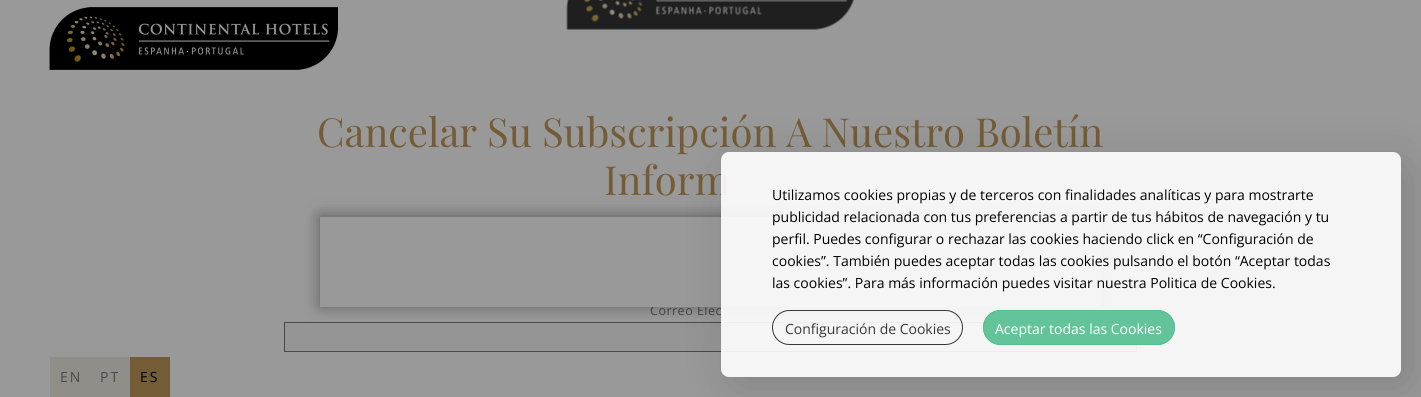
import math
import cairo

surface = cairo.ImageSurface(cairo.FORMAT_RGB24, 1421, 397)
ctx = cairo.Context(surface)
options = cairo.FontOptions()
options.set_hint_metrics(cairo.HINT_METRICS_OFF)
options.set_hint_style(cairo.HINT_STYLE_NONE)
ctx.set_font_options(options)
ctx.set_miter_limit(4)


def spaced_text(x, y, s, letter, word):
    ctx.move_to(x, y)
    for ch in s:
        ctx.show_text(ch)
        ctx.rel_move_to(letter + word * (ch == ' '), 0)


def round_rect(x, y, w, h, r):
    ctx.new_sub_path()
    for i, (u, v) in enumerate([(x + w - r, y + h - r), (x + r, y + h - r), (x + r, y + r), (x + w - r, y + r)]):
        ctx.arc(u, v, r, i * math.pi / 2, (i + 1) * math.pi / 2)
    ctx.close_path()


def shadow(x, y, w, h, r, blur, alpha):
    ctx.push_group_with_content(cairo.CONTENT_ALPHA)
    ctx.set_operator(cairo.OPERATOR_SOURCE)
    for i in range(15, -16, -2):
        e = blur * i / 6
        if min(w, h) + 2 * e > 0:
            ctx.set_source_rgba(0, 0, 0, alpha * math.erfc((i - 1) / 8.5) / 2)
            round_rect(x - e, y - e, w + 2 * e, h + 2 * e, max(0, min(r + e + blur * .6, min(w, h) / 2 + e)))
            ctx.fill()
    ctx.mask(ctx.pop_group())


def picture(path, x, y, w, h):
    ctx.save()
    ctx.set_source_surface(cairo.ImageSurface.create_from_png(path), x, y)
    ctx.rectangle(x, y, w, h)
    ctx.fill()
    ctx.restore()


ctx.set_source_rgb(0.6, 0.6, 0.6)
ctx.paint()
picture("img1.png", 49, 7, 289, 63)
picture("img2.png", 566, 0, 288, 30)
ctx.select_font_face("Playfair Display")
ctx.set_font_size(40)
ctx.set_source_rgb(0.455, 0.361, 0.216)
ctx.move_to(317, 147)
ctx.show_text("Cancelar Su Subscripción A Nuestro Boletín")
ctx.move_to(604, 195)
ctx.show_text("Inform")
ctx.select_font_face("Open Sans")
ctx.set_font_size(12.5)
ctx.set_source_rgb(0.286, 0.286, 0.286)
spaced_text(650, 315, "Correo Elec", 0.5, 0)
ctx.set_source_rgb(0.584, 0.584, 0.584)
ctx.rectangle(284.5, 322.5, 852, 29)
ctx.fill_preserve()
ctx.set_source_rgb(0.286, 0.286, 0.286)
ctx.set_line_width(1)
ctx.stroke()
ctx.set_source_rgb(0, 0, 0)
shadow(320, 216, 781, 90, 0, 8, 0.4)
ctx.set_source_rgb(0.6, 0.6, 0.6)
ctx.rectangle(320, 217, 781, 90)
ctx.fill()
ctx.save()
ctx.set_fill_rule(cairo.FILL_RULE_EVEN_ODD)
ctx.new_path()
ctx.move_to(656, 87)
ctx.line_to(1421, 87)
ctx.line_to(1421, 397)
ctx.line_to(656, 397)
ctx.close_path()
ctx.move_to(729, 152)
ctx.line_to(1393, 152)
ctx.curve_to(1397.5, 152, 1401, 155.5, 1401, 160)
ctx.line_to(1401, 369)
ctx.curve_to(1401, 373.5, 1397.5, 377, 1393, 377)
ctx.line_to(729, 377)
ctx.curve_to(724.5, 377, 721, 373.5, 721, 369)
ctx.line_to(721, 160)
ctx.curve_to(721, 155.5, 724.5, 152, 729, 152)
ctx.close_path()
ctx.clip()
ctx.set_source_rgb(0, 0, 0)
shadow(732, 163, 678, 223, 7, 25, 0.15)
ctx.restore()
ctx.set_source_rgba(1, 1, 1, 0.9)
round_rect(721, 152, 680, 225, 8)
ctx.fill()
ctx.set_font_size(14)
ctx.set_source_rgb(0, 0, 0)
ctx.move_to(772, 200)
ctx.show_text("Utilizamos cookies propias y de terceros con finalidades analíticas y para mostrarte")
ctx.move_to(772, 222)
ctx.show_text("publicidad relacionada con tus preferencias a partir de tus hábitos de navegación y tu")
ctx.move_to(772, 244)
ctx.show_text("perfil. Puedes configurar o rechazar las cookies haciendo click en “Configuración de")
ctx.move_to(772, 266)
ctx.show_text("cookies”. También puedes aceptar todas las cookies pulsando el botón “Aceptar todas")
ctx.move_to(772, 288)
ctx.show_text("las cookies”. Para más información puedes visitar nuestra Politica de Cookies.")
round_rect(772.5, 310.5, 190, 34, 17)
ctx.set_source_rgba(0.137, 0.137, 0.137, 0.9)
ctx.stroke()
ctx.set_source_rgb(0.22, 0.22, 0.22)
ctx.move_to(785, 334)
ctx.show_text("Configuración de Cookies")
ctx.set_source_rgba(0.329, 0.749, 0.561, 0.9)
round_rect(983, 310, 192, 35, 17.5)
ctx.fill()
round_rect(983.5, 310.5, 191, 34, 17)
ctx.stroke()
ctx.set_source_rgb(0.996, 0.996, 0.996)
ctx.move_to(995, 334)
ctx.show_text("Aceptar todas las Cookies")
ctx.set_source_rgb(0.569, 0.553, 0.537)
ctx.rectangle(50, 357, 80, 40)
ctx.fill()
ctx.set_source_rgb(0.286, 0.286, 0.286)
spaced_text(60, 382, "EN", 2, 0)
spaced_text(100, 382, "PT", 2, 0)
ctx.set_source_rgb(0.455, 0.361, 0.216)
ctx.rectangle(130, 357, 40, 40)
ctx.fill()
ctx.set_source_rgb(0, 0, 0)
spaced_text(140, 382, "ES", 2, 0)
surface.write_to_png("page.png")
